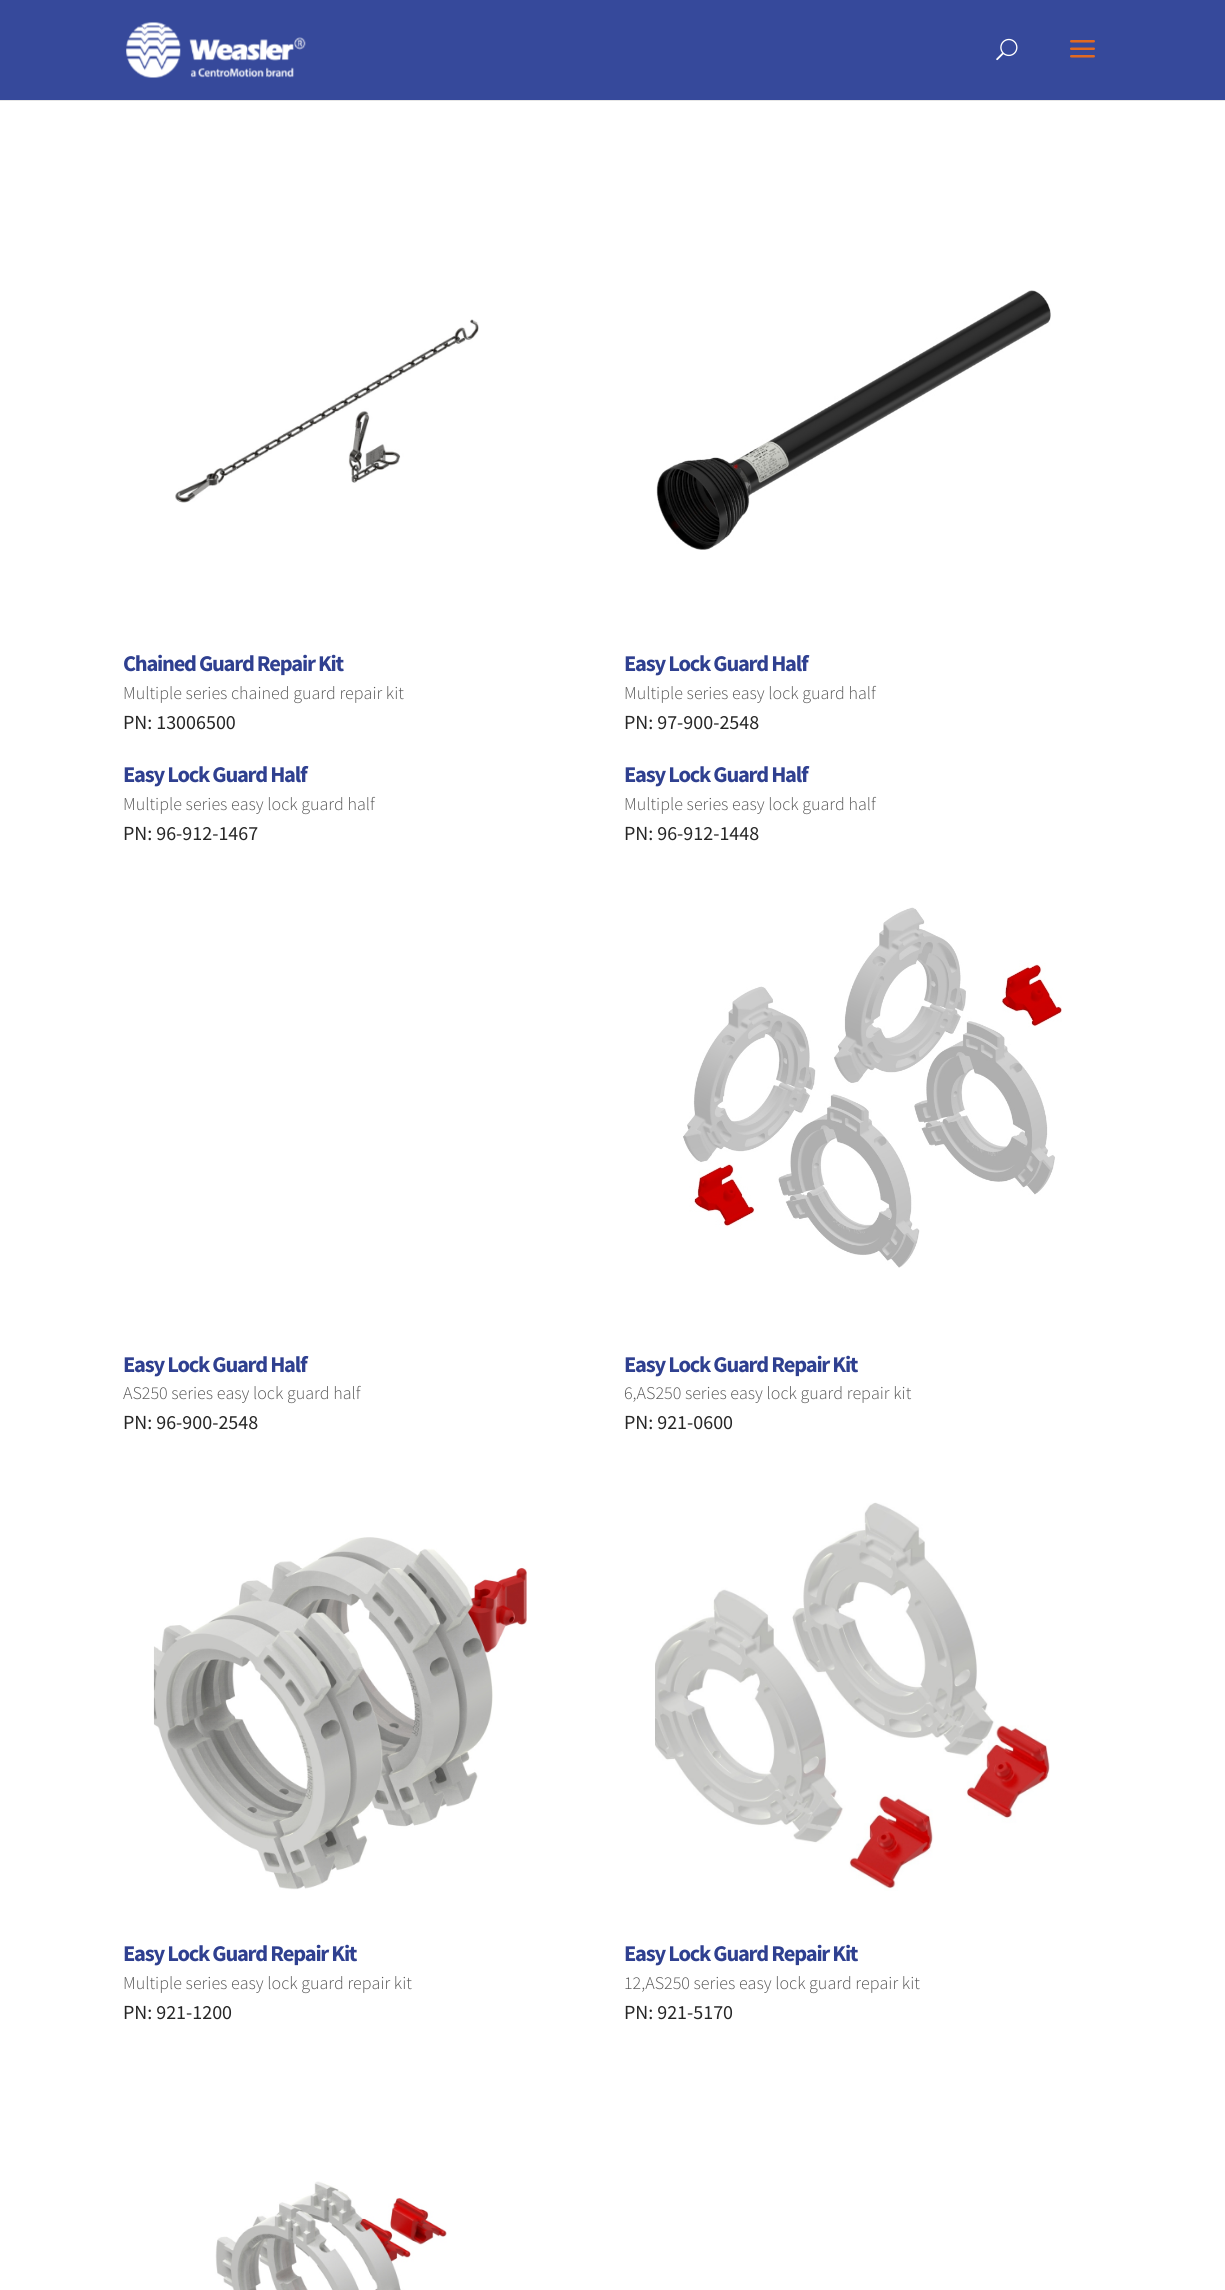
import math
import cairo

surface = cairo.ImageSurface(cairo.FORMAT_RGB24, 1225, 2290)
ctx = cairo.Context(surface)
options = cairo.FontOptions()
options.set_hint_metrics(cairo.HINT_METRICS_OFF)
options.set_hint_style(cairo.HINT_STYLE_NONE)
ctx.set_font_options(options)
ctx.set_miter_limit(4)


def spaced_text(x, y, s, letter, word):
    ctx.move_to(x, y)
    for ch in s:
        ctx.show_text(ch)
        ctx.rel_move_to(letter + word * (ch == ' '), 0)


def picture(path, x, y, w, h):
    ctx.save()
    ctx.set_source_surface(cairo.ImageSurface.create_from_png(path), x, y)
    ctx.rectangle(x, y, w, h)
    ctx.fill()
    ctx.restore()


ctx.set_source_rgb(1, 1, 1)
ctx.paint()
ctx.set_source_rgb(0.902, 0.902, 0.902)
ctx.rectangle(0, 100, 1225, 1)
ctx.fill()
ctx.set_source_rgb(0.212, 0.286, 0.608)
ctx.rectangle(0, 0, 1225, 100)
ctx.fill()
picture("img1.png", 126, 22, 180, 56)
picture("img2.png", 996, 38, 22, 23)
picture("img3.png", 1070, 40, 25, 18)
picture("img4.png", 175, 319, 304, 184)
ctx.select_font_face("Source Sans Pro", cairo.FONT_SLANT_NORMAL, cairo.FONT_WEIGHT_BOLD)
ctx.set_font_size(22.5)
ctx.set_source_rgb(0.184, 0.251, 0.565)
spaced_text(123, 671, "Chained Guard Repair Kit", -1.25, 0)
ctx.select_font_face("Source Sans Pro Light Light")
ctx.set_font_size(18)
ctx.set_source_rgb(0.337, 0.337, 0.337)
ctx.move_to(123, 699)
ctx.show_text("Multiple series chained guard repair kit")
ctx.select_font_face("Source Sans Pro")
ctx.set_font_size(20)
ctx.set_source_rgb(0.149, 0.149, 0.149)
ctx.move_to(123, 729)
ctx.show_text("PN: 13006500")
picture("img5.png", 656, 290, 395, 260)
ctx.select_font_face("Source Sans Pro", cairo.FONT_SLANT_NORMAL, cairo.FONT_WEIGHT_BOLD)
ctx.set_font_size(22.5)
ctx.set_source_rgb(0.184, 0.251, 0.565)
spaced_text(624, 671, "Easy Lock Guard Half", -1.25, 0)
ctx.select_font_face("Source Sans Pro Light Light")
ctx.set_font_size(18)
ctx.set_source_rgb(0.337, 0.337, 0.337)
ctx.move_to(624, 699)
ctx.show_text("Multiple series easy lock guard half")
ctx.select_font_face("Source Sans Pro")
ctx.set_font_size(20)
ctx.set_source_rgb(0.149, 0.149, 0.149)
ctx.move_to(624, 729)
ctx.show_text("PN: 97-900-2548")
ctx.select_font_face("Source Sans Pro", cairo.FONT_SLANT_NORMAL, cairo.FONT_WEIGHT_BOLD)
ctx.set_font_size(22.5)
ctx.set_source_rgb(0.184, 0.251, 0.565)
spaced_text(123, 782, "Easy Lock Guard Half", -1.25, 0)
ctx.select_font_face("Source Sans Pro Light Light")
ctx.set_font_size(18)
ctx.set_source_rgb(0.337, 0.337, 0.337)
ctx.move_to(123, 810)
ctx.show_text("Multiple series easy lock guard half")
ctx.select_font_face("Source Sans Pro")
ctx.set_font_size(20)
ctx.set_source_rgb(0.149, 0.149, 0.149)
ctx.move_to(123, 840)
ctx.show_text("PN: 96-912-1467")
ctx.select_font_face("Source Sans Pro", cairo.FONT_SLANT_NORMAL, cairo.FONT_WEIGHT_BOLD)
ctx.set_font_size(22.5)
ctx.set_source_rgb(0.184, 0.251, 0.565)
spaced_text(624, 782, "Easy Lock Guard Half", -1.25, 0)
ctx.select_font_face("Source Sans Pro Light Light")
ctx.set_font_size(18)
ctx.set_source_rgb(0.337, 0.337, 0.337)
ctx.move_to(624, 810)
ctx.show_text("Multiple series easy lock guard half")
ctx.select_font_face("Source Sans Pro")
ctx.set_font_size(20)
ctx.set_source_rgb(0.149, 0.149, 0.149)
ctx.move_to(624, 840)
ctx.show_text("PN: 96-912-1448")
ctx.select_font_face("Source Sans Pro", cairo.FONT_SLANT_NORMAL, cairo.FONT_WEIGHT_BOLD)
ctx.set_font_size(22.5)
ctx.set_source_rgb(0.184, 0.251, 0.565)
spaced_text(123, 1372, "Easy Lock Guard Half", -1.25, 0)
ctx.select_font_face("Source Sans Pro Light Light")
ctx.set_font_size(18)
ctx.set_source_rgb(0.337, 0.337, 0.337)
ctx.move_to(123, 1399)
ctx.show_text("AS250 series easy lock guard half")
ctx.select_font_face("Source Sans Pro")
ctx.set_font_size(20)
ctx.set_source_rgb(0.149, 0.149, 0.149)
ctx.move_to(123, 1429)
ctx.show_text("PN: 96-900-2548")
picture("img6.png", 683, 907, 379, 361)
ctx.select_font_face("Source Sans Pro", cairo.FONT_SLANT_NORMAL, cairo.FONT_WEIGHT_BOLD)
ctx.set_font_size(22.5)
ctx.set_source_rgb(0.184, 0.251, 0.565)
spaced_text(624, 1372, "Easy Lock Guard Repair Kit", -1.25, 0)
ctx.select_font_face("Source Sans Pro Light Light")
ctx.set_font_size(18)
ctx.set_source_rgb(0.337, 0.337, 0.337)
ctx.move_to(624, 1399)
ctx.show_text("6,AS250 series easy lock guard repair kit")
ctx.select_font_face("Source Sans Pro")
ctx.set_font_size(20)
ctx.set_source_rgb(0.149, 0.149, 0.149)
ctx.move_to(624, 1429)
ctx.show_text("PN: 921-0600")
picture("img7.png", 153, 1537, 374, 353)
ctx.select_font_face("Source Sans Pro", cairo.FONT_SLANT_NORMAL, cairo.FONT_WEIGHT_BOLD)
ctx.set_font_size(22.5)
ctx.set_source_rgb(0.184, 0.251, 0.565)
spaced_text(123, 1961, "Easy Lock Guard Repair Kit", -1.25, 0)
ctx.select_font_face("Source Sans Pro Light Light")
ctx.set_font_size(18)
ctx.set_source_rgb(0.337, 0.337, 0.337)
ctx.move_to(123, 1989)
ctx.show_text("Multiple series easy lock guard repair kit")
ctx.select_font_face("Source Sans Pro")
ctx.set_font_size(20)
ctx.set_source_rgb(0.149, 0.149, 0.149)
ctx.move_to(123, 2019)
ctx.show_text("PN: 921-1200")
picture("img8.png", 655, 1502, 395, 389)
ctx.select_font_face("Source Sans Pro", cairo.FONT_SLANT_NORMAL, cairo.FONT_WEIGHT_BOLD)
ctx.set_font_size(22.5)
ctx.set_source_rgb(0.184, 0.251, 0.565)
spaced_text(624, 1961, "Easy Lock Guard Repair Kit", -1.25, 0)
ctx.select_font_face("Source Sans Pro Light Light")
ctx.set_font_size(18)
ctx.set_source_rgb(0.337, 0.337, 0.337)
ctx.move_to(624, 1989)
ctx.show_text("12,AS250 series easy lock guard repair kit")
ctx.select_font_face("Source Sans Pro")
ctx.set_font_size(20)
ctx.set_source_rgb(0.149, 0.149, 0.149)
ctx.move_to(624, 2019)
ctx.show_text("PN: 921-5170")
picture("img9.png", 215, 2181, 232, 109)
surface.write_to_png("page.png")
